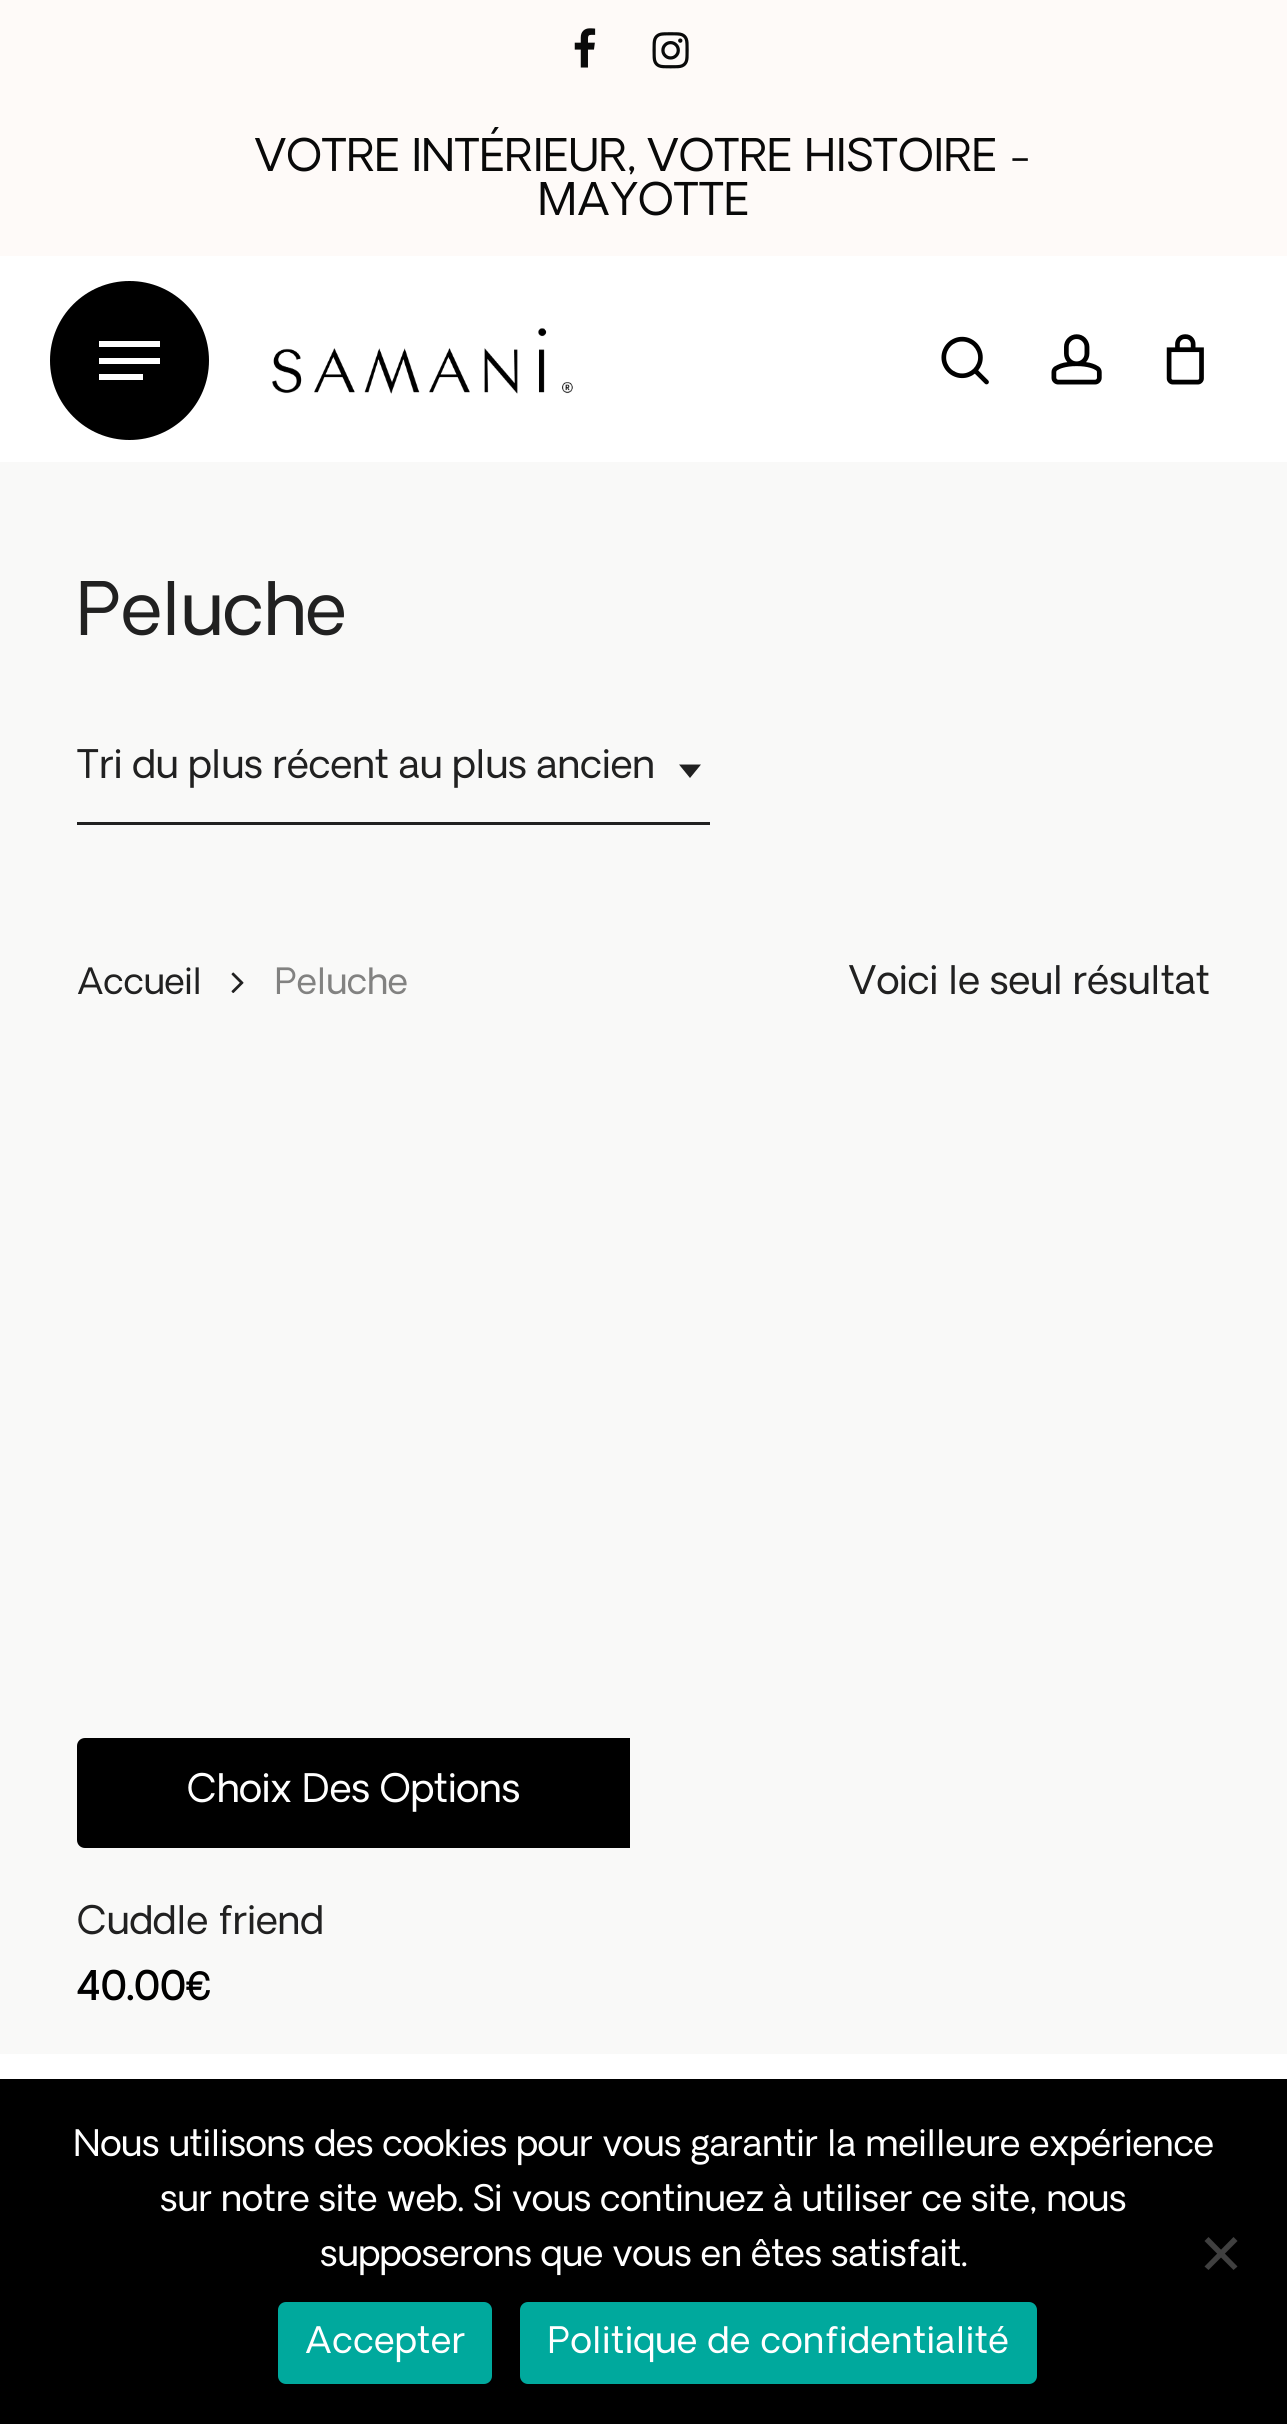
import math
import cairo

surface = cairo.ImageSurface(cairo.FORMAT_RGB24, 1287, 2424)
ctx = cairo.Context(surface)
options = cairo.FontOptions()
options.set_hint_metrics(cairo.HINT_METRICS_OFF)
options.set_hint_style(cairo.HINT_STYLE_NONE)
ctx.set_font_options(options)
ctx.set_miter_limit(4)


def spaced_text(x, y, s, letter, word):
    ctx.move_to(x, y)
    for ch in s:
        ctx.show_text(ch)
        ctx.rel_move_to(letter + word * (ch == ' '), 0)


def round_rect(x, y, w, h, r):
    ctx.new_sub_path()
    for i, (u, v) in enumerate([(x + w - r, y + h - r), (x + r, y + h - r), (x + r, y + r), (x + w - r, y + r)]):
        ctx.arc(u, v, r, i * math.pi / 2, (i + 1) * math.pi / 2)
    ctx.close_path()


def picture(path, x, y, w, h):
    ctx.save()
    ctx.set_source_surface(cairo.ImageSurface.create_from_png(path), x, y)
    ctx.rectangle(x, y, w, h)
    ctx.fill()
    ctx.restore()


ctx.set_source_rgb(1, 1, 1)
ctx.paint()
ctx.set_source_rgb(0.996, 0.98, 0.969)
ctx.rectangle(0, 0, 1287, 256)
ctx.fill()
picture("img1.png", 574, 28, 22, 40)
picture("img2.png", 652, 32, 37, 37)
ctx.select_font_face("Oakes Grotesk")
ctx.set_font_size(44)
ctx.set_source_rgb(0.039, 0.039, 0.039)
ctx.move_to(255, 171)
ctx.show_text("VOTRE INTÉRIEUR, VOTRE HISTOIRE -")
ctx.move_to(538, 215)
ctx.show_text("MAYOTTE")
ctx.set_source_rgb(0, 0, 0)
ctx.new_path()
ctx.arc(129.5, 360.5, 79.5, 0, 2 * math.pi)
ctx.fill()
ctx.set_source_rgb(1, 1, 1)
ctx.rectangle(99, 341, 61, 6)
ctx.fill()
ctx.rectangle(99, 374, 44, 6)
ctx.fill()
ctx.rectangle(99, 358, 61, 6)
ctx.fill()
picture("img3.png", 272, 328, 301, 66)
picture("img4.png", 941, 336, 48, 49)
picture("img5.png", 1051, 334, 51, 51)
picture("img6.png", 1166, 334, 38, 51)
ctx.set_source_rgb(0.976, 0.973, 0.969)
ctx.rectangle(0, 462, 1287, 1592)
ctx.fill()
ctx.set_font_size(72)
ctx.set_source_rgb(0.129, 0.129, 0.129)
ctx.move_to(77, 635)
ctx.show_text("Peluche")
ctx.rectangle(77, 822, 633, 3)
ctx.fill()
ctx.set_font_size(38.5)
ctx.move_to(77, 778)
ctx.show_text("Tri du plus récent au plus ancien")
ctx.new_path()
ctx.move_to(679, 764.5)
ctx.line_to(701, 764.5)
ctx.line_to(690, 778)
ctx.close_path()
ctx.fill()
ctx.set_font_size(35.5)
ctx.move_to(77, 994)
ctx.show_text("Accueil")
picture("img7.png", 231, 972, 13, 21)
ctx.set_source_rgb(0.51, 0.51, 0.506)
ctx.move_to(275, 994)
ctx.show_text("Peluche")
ctx.set_font_size(38.5)
ctx.set_source_rgb(0.129, 0.129, 0.129)
ctx.move_to(849, 994)
ctx.show_text("Voici le seul résultat")
ctx.set_source_rgb(0, 0, 0)
ctx.new_path()
ctx.move_to(85, 1738)
ctx.line_to(630, 1738)
ctx.line_to(630, 1848)
ctx.line_to(85, 1848)
ctx.curve_to(80.5, 1848, 77, 1844.5, 77, 1840)
ctx.line_to(77, 1746)
ctx.curve_to(77, 1741.5, 80.5, 1738, 85, 1738)
ctx.close_path()
ctx.fill()
ctx.set_source_rgb(1, 1, 1)
ctx.move_to(187, 1802)
ctx.show_text("Choix Des Options")
ctx.set_source_rgb(0.129, 0.129, 0.129)
ctx.move_to(77, 1934)
ctx.show_text("Cuddle friend")
ctx.select_font_face("Oakes Grotesk", cairo.FONT_SLANT_NORMAL, cairo.FONT_WEIGHT_BOLD)
ctx.set_source_rgb(0, 0, 0)
ctx.move_to(77, 2000)
ctx.show_text("40.00€")
ctx.rectangle(0, 2079, 1287, 345)
ctx.fill()
ctx.select_font_face("Oakes Grotesk")
ctx.set_font_size(35.75)
ctx.set_source_rgb(1, 1, 1)
ctx.move_to(74, 2156)
ctx.show_text("Nous utilisons des cookies pour vous garantir la meilleure expérience")
ctx.move_to(160, 2211)
ctx.show_text("sur notre site web. Si vous continuez à utiliser ce site, nous")
ctx.move_to(320, 2266)
ctx.show_text("supposerons que vous en êtes satisfait.")
ctx.set_source_rgb(0.251, 0.251, 0.251)
ctx.new_path()
ctx.move_to(1233.5, 2237)
ctx.line_to(1237.5, 2241)
ctx.line_to(1208.5, 2270)
ctx.line_to(1204.5, 2266.5)
ctx.close_path()
ctx.fill()
ctx.new_path()
ctx.move_to(1204.5, 2241)
ctx.line_to(1208.5, 2237)
ctx.line_to(1237.5, 2266.5)
ctx.line_to(1233.5, 2270)
ctx.close_path()
ctx.fill()
ctx.set_source_rgb(0, 0.663, 0.616)
round_rect(278, 2302, 214, 82, 8)
ctx.fill()
ctx.set_source_rgb(1, 1, 1)
spaced_text(305, 2353, "Accepter", 0.7, 0)
ctx.set_source_rgb(0, 0.663, 0.616)
round_rect(520, 2302, 517, 82, 8)
ctx.fill()
ctx.set_source_rgb(1, 1, 1)
spaced_text(548, 2353, "Politique de confidentialité", 0.7, 0)
surface.write_to_png("page.png")
